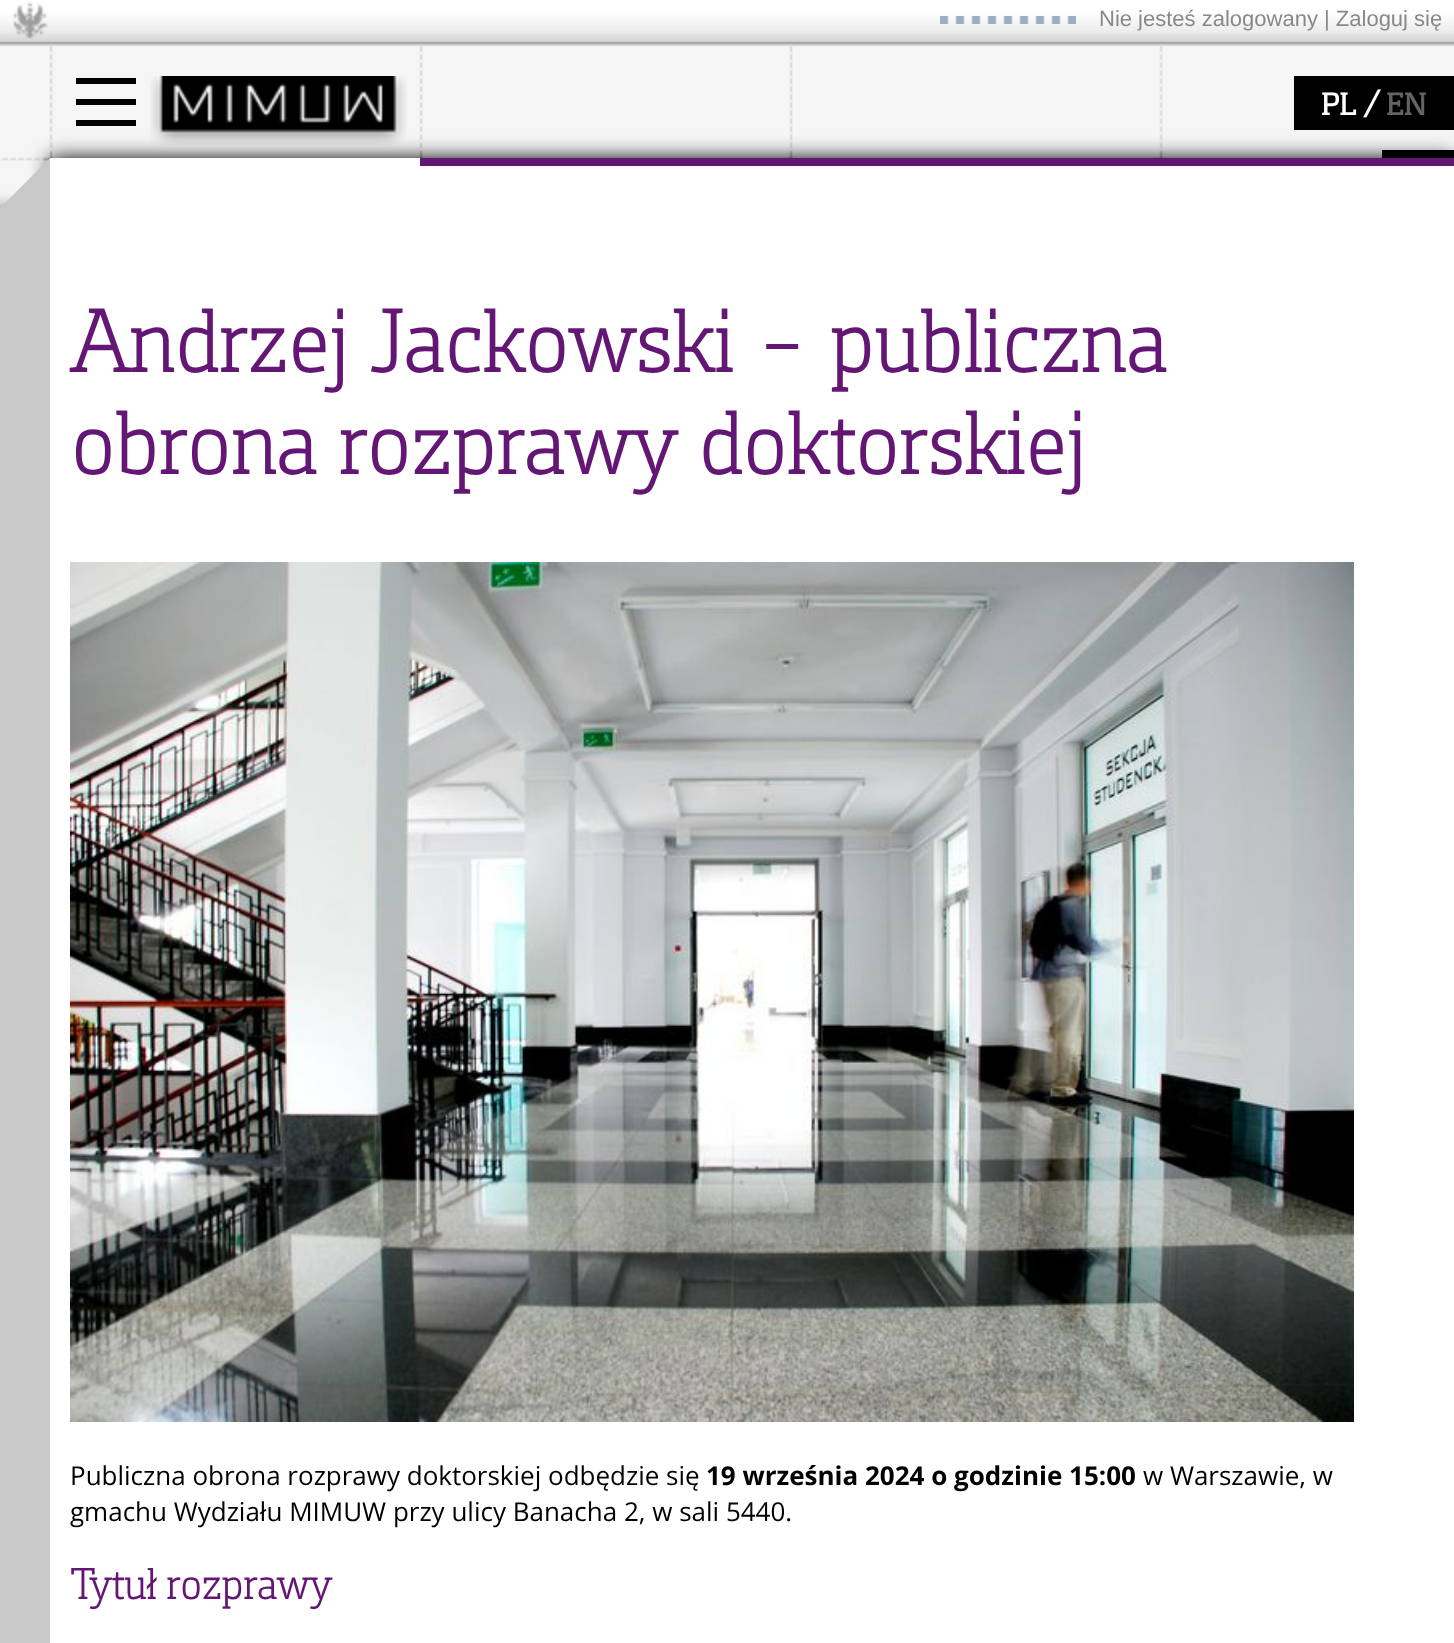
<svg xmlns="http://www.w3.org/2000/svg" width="1454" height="1643">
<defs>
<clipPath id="clip1"><rect x="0" y="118" width="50" height="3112"/></clipPath>
<clipPath id="clip2"><rect y="118" width="50" height="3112"/></clipPath>
</defs>
<rect width="100%" height="100%" fill="#fff"/>
<image x="0" y="46" width="1454" height="162" href="media/1.png"/>
<image x="0" y="0" width="1454" height="46" href="media/2.png"/>
<image x="940" y="16" width="136" height="8" href="media/3.png"/>
<text x="1099" y="26" style="font-family:Liberation Sans;font-size:22px;fill:#888">Nie jesteś zalogowany | Zaloguj się</text>
<rect x="76" y="78" width="60" height="6" fill="#000"/>
<rect x="76" y="99" width="60" height="6" fill="#000"/>
<rect x="76" y="120" width="60" height="6" fill="#000"/>
<rect x="1294" y="76" width="160" height="54" fill="#000"/>
<text x="1321" y="115" style="font-family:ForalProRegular;font-size:32px;font-weight:bold;fill:#fff">PL</text>
<text x="1364" y="114" style="font-family:ForalProRegular;font-size:32px;font-weight:bold;fill:#fff">/</text>
<text x="1386" y="115" style="font-family:ForalProRegular;font-size:32px;font-weight:bold;fill:#646464">EN</text>
<rect x="1382" y="150" width="72" height="8" fill="#000"/>
<image x="150" y="76" width="257" height="70" href="media/4.png"/>
<rect x="50" y="158" width="1404" height="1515" fill="#000" filter="blur(10px)"/>
<rect x="50" y="158" width="1404" height="1485" fill="#fff"/>
<g clip-path="url(#clip1)">
<rect x="-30" y="214" width="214" height="268" fill="#000" filter="blur(10px)"/>
</g>
<g clip-path="url(#clip2)">
<path d="M-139 347l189-189l189 189l-189 190z" fill="#c8c8c8"/>
</g>
<rect y="487" width="50" height="1156" fill="#c8c8c8"/>
<rect x="420" y="158" width="1034" height="8" fill="#641674"/>
<text x="70" y="372" style="font-family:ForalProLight;font-size:90px;font-weight:bold;fill:#641674">Andrzej Jackowski – publiczna</text>
<text x="70" y="474" style="font-family:ForalProLight;font-size:90px;font-weight:bold;fill:#641674">obrona rozprawy doktorskiej</text>
<image x="70" y="562" width="1284" height="860" href="media/5.png"/>
<text x="70" y="1485" style="font-family:Open Sans;font-size:26px;fill:#000">Publiczna obrona rozprawy doktorskiej odbędzie się</text>
<text x="706" y="1485" style="font-family:Open Sans;font-size:26px;font-weight:bold;fill:#000">19 września 2024 o godzinie 15:00</text>
<text x="1143" y="1485" style="font-family:Open Sans;font-size:26px;fill:#000">w Warszawie, w</text>
<text x="70" y="1521" style="font-family:Open Sans;font-size:26px;fill:#000">gmachu Wydziału MIMUW przy ulicy Banacha 2, w sali 5440.</text>
<text x="70" y="1599" style="font-family:ForalProLight;font-size:44px;font-weight:bold;fill:#641674">Tytuł rozprawy</text>
</svg>
